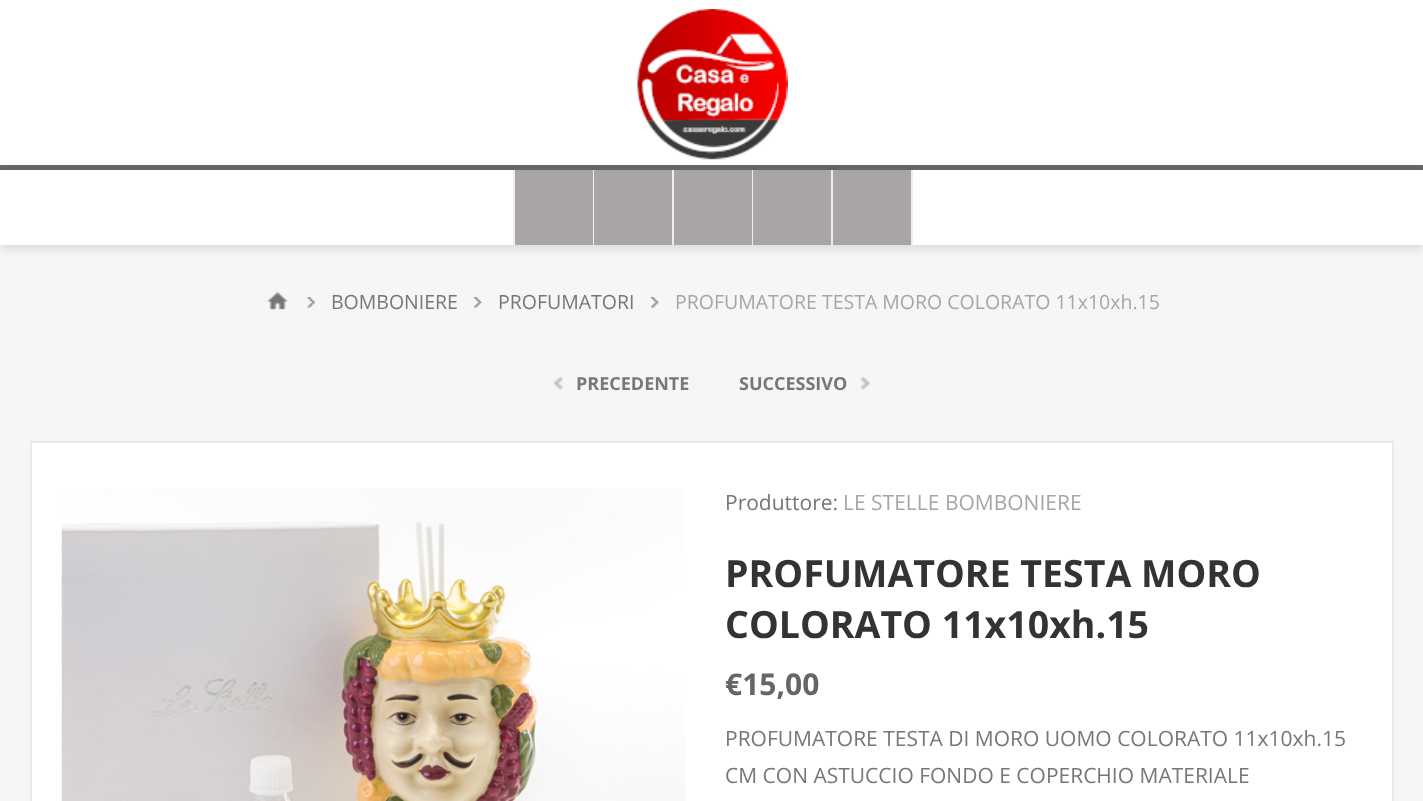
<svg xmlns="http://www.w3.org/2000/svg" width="1423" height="801">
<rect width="100%" height="100%" fill="#fff"/>
<rect y="245" width="1423" height="556" fill="#f6f6f6"/>
<image x="637" y="9" width="151" height="151" href="media/1.png"/>
<rect y="170" width="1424" height="79" fill="#0000001a" filter="blur(4px)"/>
<rect y="170" width="1423" height="75" fill="#fff"/>
<rect y="165" width="1423" height="5" fill="#666"/>
<rect x="515" y="170" width="78" height="75" fill="#a9a5a5"/>
<rect x="593" y="170" width="1" height="75" fill="#eee"/>
<rect x="513" y="170" width="2" height="75" fill="#eee"/>
<rect x="594" y="170" width="78" height="75" fill="#a9a5a5"/>
<rect x="672" y="170" width="2" height="75" fill="#eee"/>
<rect x="674" y="170" width="78" height="75" fill="#a9a5a5"/>
<rect x="752" y="170" width="1" height="75" fill="#eee"/>
<rect x="753" y="170" width="78" height="75" fill="#a9a5a5"/>
<rect x="831" y="170" width="2" height="75" fill="#eee"/>
<rect x="833" y="170" width="78" height="75" fill="#a9a5a5"/>
<rect x="911" y="170" width="2" height="75" fill="#eee"/>
<image x="267" y="292" width="21" height="18" href="media/2.png"/>
<image x="307" y="297" width="8" height="11" href="media/3.png"/>
<text x="331" y="309" style="font-family:Open Sans;font-size:19.5px;fill:#777">BOMBONIERE</text>
<image x="474" y="297" width="8" height="11" href="media/4.png"/>
<text x="498" y="309" style="font-family:Open Sans;font-size:19.5px;fill:#777">PROFUMATORI</text>
<image x="651" y="297" width="8" height="11" href="media/5.png"/>
<text x="675" y="309" style="font-family:Open Sans;font-size:19.5px;fill:#a9a5a5">PROFUMATORE TESTA MORO COLORATO 11x10xh.15</text>
<image x="553" y="376" width="10" height="14" href="media/6.png"/>
<text x="576" y="390" style="font-family:Open Sans;font-size:18px;font-weight:bold;fill:#777">PRECEDENTE</text>
<text x="739" y="390" style="font-family:Open Sans;font-size:18px;font-weight:bold;fill:#777">SUCCESSIVO</text>
<image x="860" y="376" width="11" height="14" href="media/7.png"/>
<rect x="31" y="442" width="1362" height="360" fill="#fff" stroke="#e9e9e9" stroke-width="2"/>
<image x="61" y="488" width="624" height="313" href="media/8.png"/>
<text x="725" y="510" style="font-family:Open Sans;font-size:21px;fill:#777">Produttore:</text>
<text x="843" y="510" style="font-family:Open Sans;font-size:21px;fill:#a9a5a5">LE STELLE BOMBONIERE</text>
<text x="725" y="587" style="font-family:Open Sans;font-size:37.5px;font-weight:bold;fill:#333">PROFUMATORE TESTA MORO</text>
<text x="725" y="638" style="font-family:Open Sans;font-size:37.5px;font-weight:bold;fill:#333">COLORATO 11x10xh.15</text>
<text x="725" y="695" style="font-family:Open Sans;font-size:30px;font-weight:bold;fill:#666">€15,00</text>
<text x="725" y="746" style="font-family:Open Sans;font-size:21px;fill:#777">PROFUMATORE TESTA DI MORO UOMO COLORATO 11x10xh.15</text>
<text x="725" y="783" style="font-family:Open Sans;font-size:21px;fill:#777">CM CON ASTUCCIO FONDO E COPERCHIO MATERIALE</text>
</svg>
